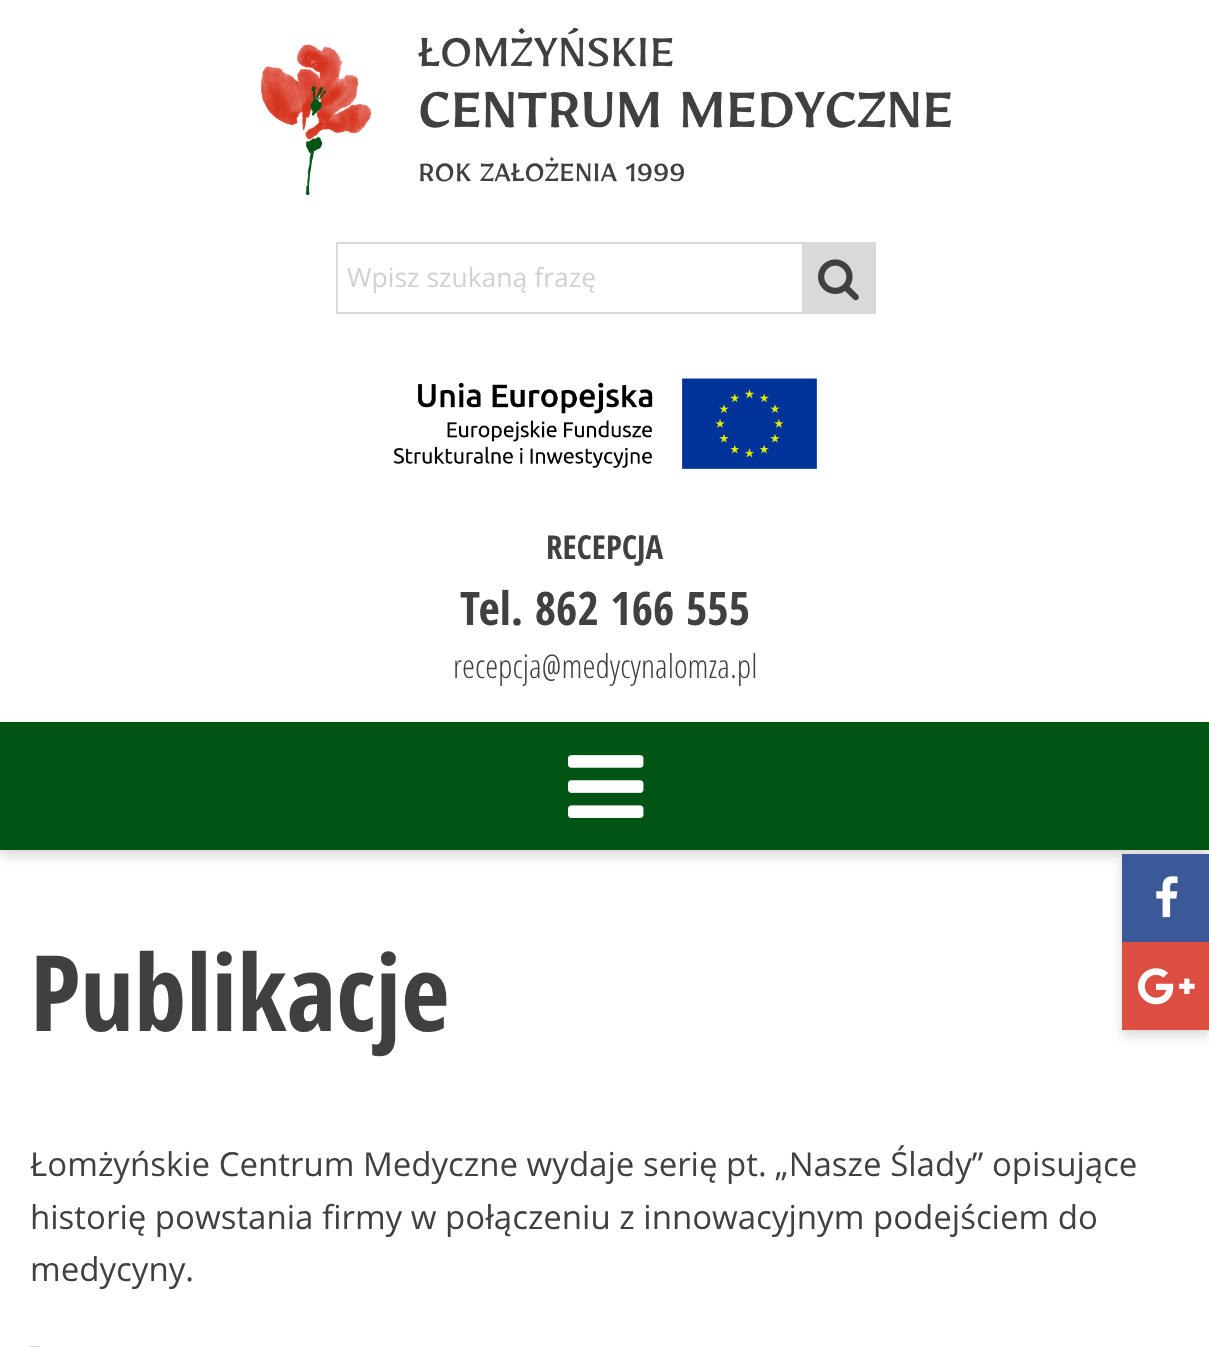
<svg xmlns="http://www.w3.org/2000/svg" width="1209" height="1347">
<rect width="100%" height="100%" fill="#fff"/>
<image x="260" y="44" width="112" height="151" href="media/1.png"/>
<text x="418" y="66" style="font-family:Mirza;font-size:53px;fill:#404040">ŁOMŻYŃSKIE</text>
<text x="418" y="127" style="font-family:Mirza;font-size:66px;font-weight:500;fill:#404040">CENTRUM MEDYCZNE</text>
<text x="418" y="181" style="font-family:Mirza;font-size:33px;fill:#404040">ROK ZAŁOŻENIA 1999</text>
<rect x="337" y="243" width="466" height="70" fill="none" stroke="#d9d9d9" stroke-width="2"/>
<text x="347" y="287" style="font-family:Open Sans;font-size:26.5px;fill:#d1d1d1">Wpisz szukaną frazę</text>
<rect x="804" y="242" width="72" height="72" fill="#d9d9d9"/>
<image x="818" y="259" width="41" height="42" href="media/2.png"/>
<image x="393" y="378" width="424" height="91" href="media/3.png"/>
<text x="546" y="559" style="font-family:Open Sans Condensed;font-size:33px;font-weight:bold;fill:#404040">RECEPCJA</text>
<text x="460" y="625" style="font-family:Open Sans Condensed;font-size:46.25px;font-weight:bold;fill:#404040">Tel. 862 166 555</text>
<text x="453" y="678" style="font-family:Open Sans Condensed;font-size:33px;font-weight:300;fill:#404040">recepcja@medycynalomza.pl</text>
<rect y="728" width="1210" height="128" fill="#00000026" filter="blur(6px)"/>
<rect y="722" width="1209" height="128" fill="#005414"/>
<image x="568" y="755" width="76" height="63" href="media/4.png"/>
<rect x="1122" y="860" width="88" height="88" fill="#00000026" filter="blur(6px)"/>
<rect x="1122" y="854" width="87" height="88" fill="#3b5998"/>
<image x="1156" y="876" width="22" height="42" href="media/5.png"/>
<rect x="1122" y="948" width="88" height="88" fill="#00000026" filter="blur(6px)"/>
<rect x="1122" y="942" width="87" height="88" fill="#dc4e41"/>
<image x="1138" y="968" width="57" height="37" href="media/6.png"/>
<text x="30" y="1031" style="font-family:Open Sans Condensed;font-size:105.5px;font-weight:bold;fill:#404040">Publikacje</text>
<text x="30" y="1176" style="font-family:Open Sans;font-size:33px;fill:#404040">Łomżyńskie Centrum Medyczne wydaje serię pt. „Nasze Ślady” opisujące</text>
<text x="30" y="1229" style="font-family:Open Sans;font-size:33px;fill:#404040">historię powstania firmy w połączeniu z innowacyjnym podejściem do</text>
<text x="30" y="1281" style="font-family:Open Sans;font-size:33px;fill:#404040">medycyny.</text>
<rect x="30" y="1346" width="10" height="1" fill="#d9d9d9"/>
</svg>
